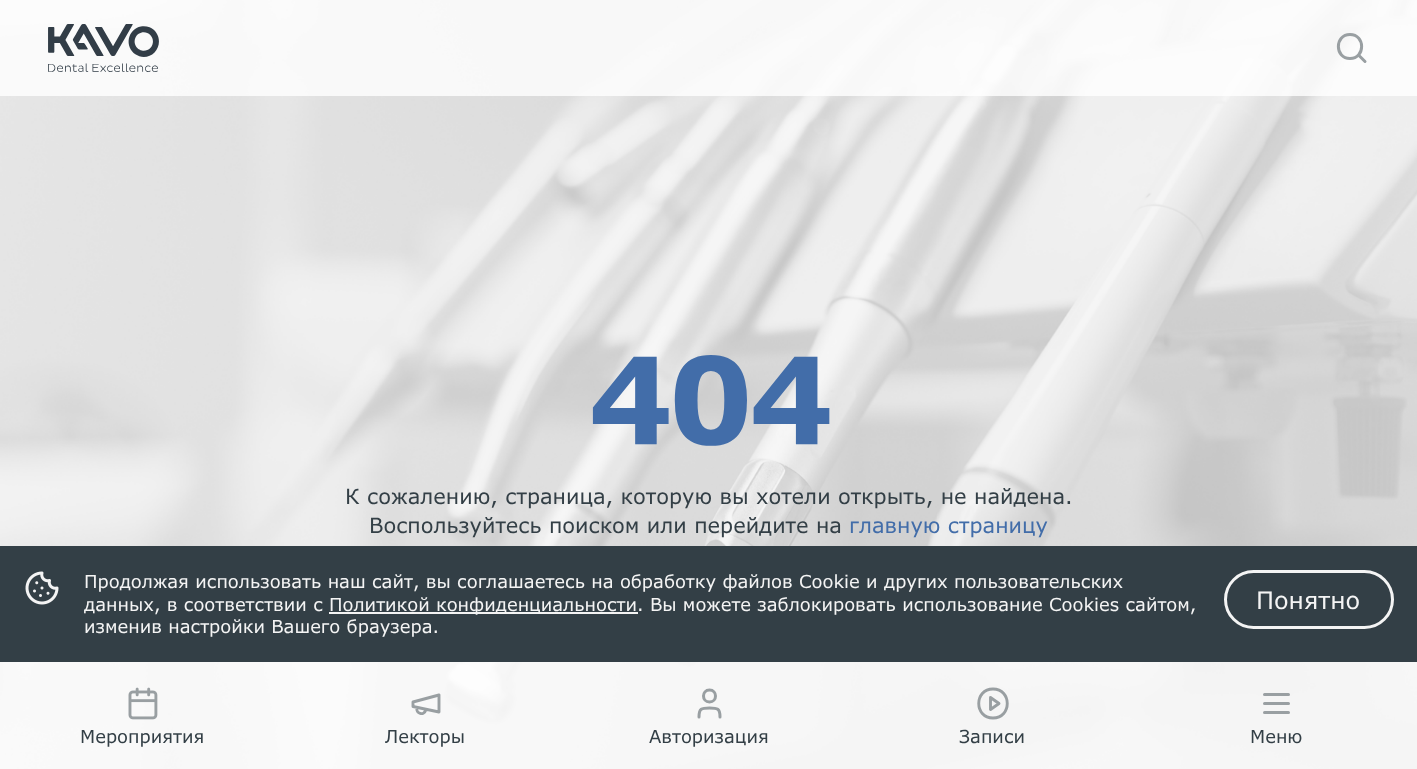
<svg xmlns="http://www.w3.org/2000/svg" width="1417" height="769">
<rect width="100%" height="100%" fill="#f4f4f4"/>
<image x="0" y="0" width="1417" height="769" href="media/2.png"/>
<rect width="1417" height="96" fill="#ffffffcc"/>
<image x="48" y="24" width="111" height="48" href="media/1.png"/>
<path d="M1350 58.5c15.5 0 15.5-24 0-24c-15.5 0-15.5 24 0 24zm15 3l-6.5-6.5" fill="none" stroke="#999fa2" stroke-width="3" stroke-linecap="round" stroke-linejoin="round"/>
<text x="588" y="444" style="font-family:Verdana;font-size:120px;font-weight:bold;letter-spacing:-5px;fill:#426da9">404</text>
<text x="345" y="504" style="font-family:Verdana;font-size:21px;fill:#333f46">К сожалению, страница, которую вы хотели открыть, не найдена.</text>
<text x="369" y="533" style="font-family:Verdana;font-size:21px;fill:#333f46">Воспользуйтесь поиском или перейдите на</text>
<text x="849" y="533" style="font-family:Verdana;font-size:21px;fill:#426da9">главную страницу</text>
<rect y="546" width="1417" height="116" fill="#333f46"/>
<image x="25" y="571" width="34" height="34" href="media/3.png"/>
<text x="84" y="588" style="font-family:Verdana;font-size:18px;fill:#f4f4f4">Продолжая использовать наш сайт, вы соглашаетесь на обработку файлов Сookie и других пользовательских</text>
<text x="84" y="611" style="font-family:Verdana;font-size:18px;fill:#f4f4f4">данных, в соответствии с</text>
<rect x="329" y="612" width="309" height="2" fill="#f4f4f4"/>
<text x="329" y="611" style="font-family:Verdana;font-size:18px;fill:#f4f4f4">Политикой конфиденциальности</text>
<text x="637" y="611" style="font-family:Verdana;font-size:18px;fill:#f4f4f4">. Вы можете заблокировать использование Cookies сайтом,</text>
<text x="84" y="633" style="font-family:Verdana;font-size:18px;fill:#f4f4f4">изменив настройки Вашего браузера.</text>
<rect x="1225.5" y="571.5" width="167" height="56" rx="28" fill="none" stroke="#f4f4f4" stroke-width="3"/>
<text x="1256" y="609" style="font-family:Verdana;font-size:24px;fill:#f4f4f4">Понятно</text>
<rect y="662" width="1417" height="107" fill="#ffffffcc"/>
<image x="128" y="687" width="30" height="33" href="media/4.png"/>
<text x="80" y="743" style="font-family:Verdana;font-size:18px;fill:#333f46">Мероприятия</text>
<path d="M413 702l26-7v17l-26-5.5zm12.5 8.5c-1.5 5.5-10 3-8.5-2.5" fill="none" stroke="#999fa2" stroke-width="2.9" stroke-linecap="round" stroke-linejoin="round"/>
<text x="385" y="743" style="font-family:Verdana;font-size:18px;fill:#333f46">Лекторы</text>
<path d="M720 717c0-8.5-2.5-9-10.5-9c-8 0-10.5 .5-10.5 9m10.5-15c8 0 8-12 0-12c-8 0-8 12 0 12z" fill="none" stroke="#999fa2" stroke-width="3" stroke-linecap="round" stroke-linejoin="round"/>
<text x="649" y="743" style="font-family:Verdana;font-size:18px;fill:#333f46">Авторизация</text>
<path d="M993 718c19 0 19-29 0-29c-19 0-19 29 0 29zm-2.5-20.5l8.5 6l-8.5 6z" fill="none" stroke="#999fa2" stroke-width="2.9" stroke-linecap="round" stroke-linejoin="round"/>
<text x="959" y="743" style="font-family:Verdana;font-size:18px;fill:#333f46">Записи</text>
<rect x="1263" y="693" width="27" height="3" rx="1.5" fill="#999fa2"/>
<rect x="1263" y="702" width="27" height="3" rx="1.5" fill="#999fa2"/>
<rect x="1263" y="711" width="27" height="3" rx="1.5" fill="#999fa2"/>
<text x="1250" y="743" style="font-family:Verdana;font-size:18px;fill:#333f46">Меню</text>
</svg>
